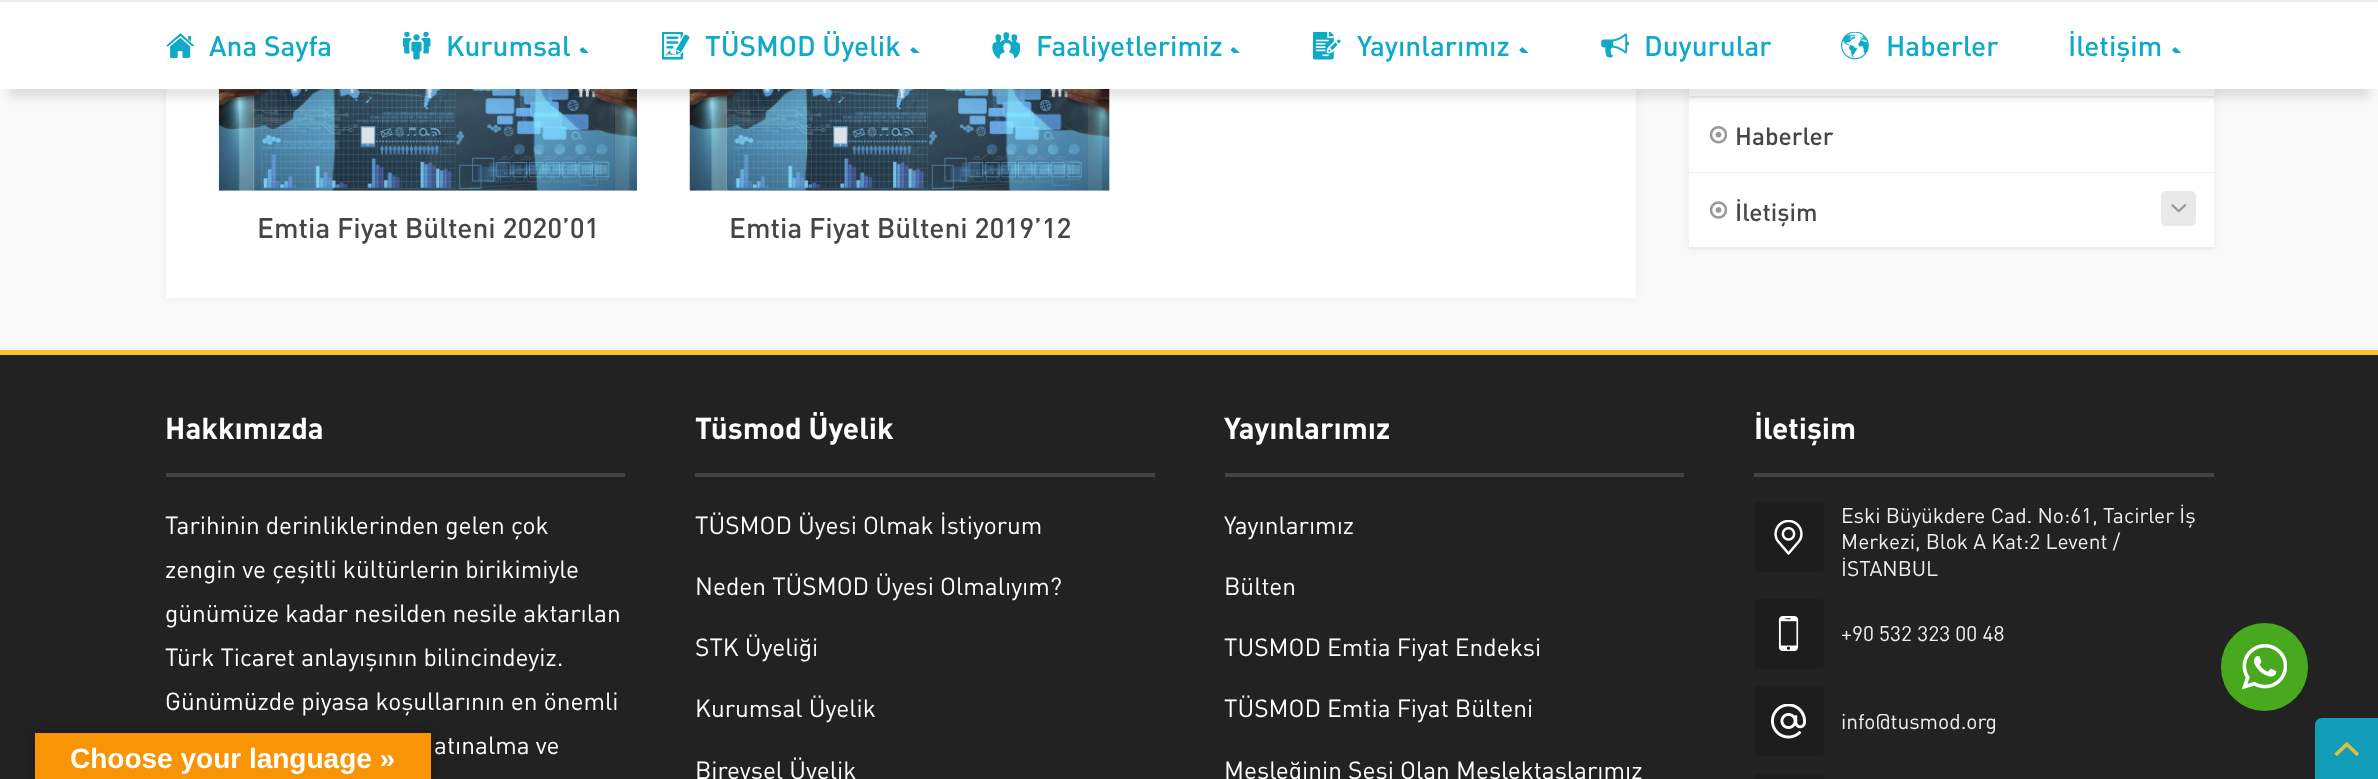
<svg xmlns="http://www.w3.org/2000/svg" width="2378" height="779">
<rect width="100%" height="100%" fill="#f9f9f9"/>
<rect x="1689" y="-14" width="525" height="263" fill="#0000000d" filter="blur(4.5px)"/>
<rect x="1689" y="89" width="525" height="158" fill="#fff"/>
<rect x="1689" y="96" width="525" height="2" fill="#ededed"/>
<rect x="166" y="-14" width="1470" height="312" fill="#0000000d" filter="blur(4.5px)"/>
<rect x="166" y="89" width="1470" height="209" fill="#fff"/>
<rect x="219" y="190" width="418" height="1" fill="#f0f0f0"/>
<image x="218" y="89" width="419" height="102" href="media/14.png"/>
<rect x="690" y="89" width="420" height="102" fill="#f0f0f0"/>
<image x="689" y="89" width="421" height="102" href="media/15.png"/>
<rect x="9" y="26" width="2361" height="72" fill="#0000001a" filter="blur(4.5px)"/>
<rect y="2" width="2378" height="87" fill="#fff"/>
<rect width="2378" height="2" fill="#ececec"/>
<image x="166" y="33" width="28" height="25" href="media/1.png"/>
<text x="209" y="56" style="font-family:DIN;font-size:28px;font-weight:500;fill:#0faac7">Ana Sayfa</text>
<image x="403" y="32" width="28" height="28" href="media/2.png"/>
<text x="446" y="56" style="font-family:DIN;font-size:28px;font-weight:500;fill:#0faac7">Kurumsal</text>
<image x="579" y="47" width="10" height="6" href="media/3.png"/>
<image x="662" y="32" width="28" height="28" href="media/4.png"/>
<text x="705" y="56" style="font-family:DIN;font-size:28px;font-weight:500;fill:#0faac7">TÜSMOD Üyelik</text>
<image x="910" y="47" width="10" height="6" href="media/5.png"/>
<image x="992" y="32" width="28" height="27" href="media/6.png"/>
<text x="1036" y="56" style="font-family:DIN;font-size:28px;font-weight:500;fill:#0faac7">Faaliyetlerimiz</text>
<image x="1230" y="47" width="10" height="6" href="media/3.png"/>
<image x="1313" y="32" width="28" height="28" href="media/7.png"/>
<text x="1357" y="56" style="font-family:DIN;font-size:28px;font-weight:500;fill:#0faac7">Yayınlarımız</text>
<image x="1519" y="47" width="10" height="6" href="media/5.png"/>
<image x="1601" y="33" width="28" height="25" href="media/8.png"/>
<text x="1644" y="56" style="font-family:DIN;font-size:28px;font-weight:500;fill:#0faac7">Duyurular</text>
<image x="1841" y="32" width="28" height="28" href="media/9.png"/>
<text x="1886" y="56" style="font-family:DIN;font-size:28px;font-weight:500;fill:#0faac7">Haberler</text>
<text x="2068" y="56" style="font-family:DIN;font-size:28px;font-weight:500;fill:#0faac7">İletişim</text>
<image x="2172" y="47" width="10" height="6" href="media/10.png"/>
<rect x="1689" y="172" width="525" height="1" fill="#ededed"/>
<image x="1710" y="126" width="17" height="18" href="media/11.png"/>
<text x="1735" y="145" style="font-family:DIN;font-size:24.5px;font-weight:500;fill:#464646">Haberler</text>
<rect x="1689" y="247" width="525" height="2" fill="#ededed"/>
<image x="1710" y="201" width="17" height="18" href="media/12.png"/>
<text x="1735" y="221" style="font-family:DIN;font-size:24.5px;font-weight:500;fill:#464646">İletişim</text>
<rect x="2161" y="191" width="35" height="35" rx="5" fill="#e9e9e9"/>
<image x="2171" y="204" width="16" height="9" href="media/13.png"/>
<text x="257" y="238" style="font-family:DIN;font-size:28px;font-weight:500;fill:#464646">Emtia Fiyat Bülteni 2020’01</text>
<text x="729" y="238" style="font-family:DIN;font-size:28px;font-weight:500;fill:#464646">Emtia Fiyat Bülteni 2019’12</text>
<rect y="355" width="2378" height="424" fill="#222"/>
<rect y="350" width="2378" height="5" fill="#fac32d"/>
<rect x="166" y="473" width="459" height="4" fill="#434343"/>
<text x="165" y="439" style="font-family:DIN;font-size:29.75px;font-weight:bold;fill:#fff">Hakkımızda</text>
<text x="165" y="534" style="font-family:DIN;font-size:24.5px;fill:#fff">Tarihinin derinliklerinden gelen çok</text>
<text x="165" y="578" style="font-family:DIN;font-size:24.5px;fill:#fff">zengin ve çeşitli kültürlerin birikimiyle</text>
<text x="165" y="622" style="font-family:DIN;font-size:24.5px;fill:#fff">günümüze kadar nesilden nesile aktarılan</text>
<text x="165" y="666" style="font-family:DIN;font-size:24.5px;fill:#fff">Türk Ticaret anlayışının bilincindeyiz.</text>
<text x="165" y="710" style="font-family:DIN;font-size:24.5px;fill:#fff">Günümüzde piyasa koşullarının en önemli</text>
<text x="434" y="754" style="font-family:DIN;font-size:24.5px;fill:#fff">atınalma ve</text>
<rect x="695" y="473" width="460" height="4" fill="#434343"/>
<text x="695" y="439" style="font-family:DIN;font-size:29.75px;font-weight:bold;fill:#fff">Tüsmod Üyelik</text>
<text x="695" y="534" style="font-family:DIN;font-size:24.5px;fill:#fff">TÜSMOD Üyesi Olmak İstiyorum</text>
<text x="695" y="595" style="font-family:DIN;font-size:24.5px;fill:#fff">Neden TÜSMOD Üyesi Olmalıyım?</text>
<text x="695" y="656" style="font-family:DIN;font-size:24.5px;fill:#fff">STK Üyeliği</text>
<text x="695" y="717" style="font-family:DIN;font-size:24.5px;fill:#fff">Kurumsal Üyelik</text>
<text x="695" y="779" style="font-family:DIN;font-size:24.5px;fill:#fff">Bireysel Üyelik</text>
<rect x="1225" y="473" width="459" height="4" fill="#434343"/>
<text x="1224" y="439" style="font-family:DIN;font-size:29.75px;font-weight:bold;fill:#fff">Yayınlarımız</text>
<text x="1224" y="534" style="font-family:DIN;font-size:24.5px;fill:#fff">Yayınlarımız</text>
<text x="1224" y="595" style="font-family:DIN;font-size:24.5px;fill:#fff">Bülten</text>
<text x="1224" y="656" style="font-family:DIN;font-size:24.5px;fill:#fff">TUSMOD Emtia Fiyat Endeksi</text>
<text x="1224" y="717" style="font-family:DIN;font-size:24.5px;fill:#fff">TÜSMOD Emtia Fiyat Bülteni</text>
<text x="1224" y="779" style="font-family:DIN;font-size:24.5px;fill:#fff">Mesleğinin Sesi Olan Meslektaşlarımız</text>
<rect x="1754" y="473" width="460" height="4" fill="#434343"/>
<text x="1754" y="439" style="font-family:DIN;font-size:29.75px;font-weight:bold;fill:#fff">İletişim</text>
<rect x="1754" y="502" width="70" height="70" rx="5" fill="#1d1d1d"/>
<image x="1774" y="520" width="29" height="35" href="media/16.png"/>
<text x="1841" y="523" style="font-family:DIN;font-size:21px;fill:#eee">Eski Büyükdere Cad. No:61, Tacirler İş</text>
<text x="1841" y="549" style="font-family:DIN;font-size:21px;fill:#eee">Merkezi, Blok A Kat:2 Levent /</text>
<text x="1841" y="576" style="font-family:DIN;font-size:21px;fill:#eee">İSTANBUL</text>
<rect x="1754" y="599" width="70" height="70" rx="5" fill="#1d1d1d"/>
<image x="1778" y="616" width="21" height="35" href="media/17.png"/>
<text x="1841" y="641" style="font-family:DIN;font-size:21px;fill:#eee">+90 532 323 00 48</text>
<rect x="1754" y="686" width="70" height="70" rx="5" fill="#1d1d1d"/>
<image x="1771" y="704" width="35" height="35" href="media/18.png"/>
<text x="1841" y="729" style="font-family:DIN;font-size:21px;fill:#eee">info@tusmod.org</text>
<rect x="1754" y="774" width="70" height="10" rx="5" fill="#1d1d1d"/>
<rect x="2221" y="623" width="87" height="88" rx="43.5" fill="#48a91f"/>
<image x="2242" y="644" width="45" height="46" href="media/19.png"/>
<rect x="35" y="733" width="396" height="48" fill="#0000004d" filter="blur(8px)"/>
<rect x="35" y="733" width="396" height="46" fill="#f89406"/>
<text x="70" y="768" style="font-family:Liberation Sans;font-size:28px;font-weight:bold;fill:#fff">Choose your language »</text>
<path d="M2322 718h56v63h-63v-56c0-4 3-7 7-7z" fill="#119cb7"/>
<image x="2334" y="742" width="25" height="14" href="media/20.png"/>
</svg>
